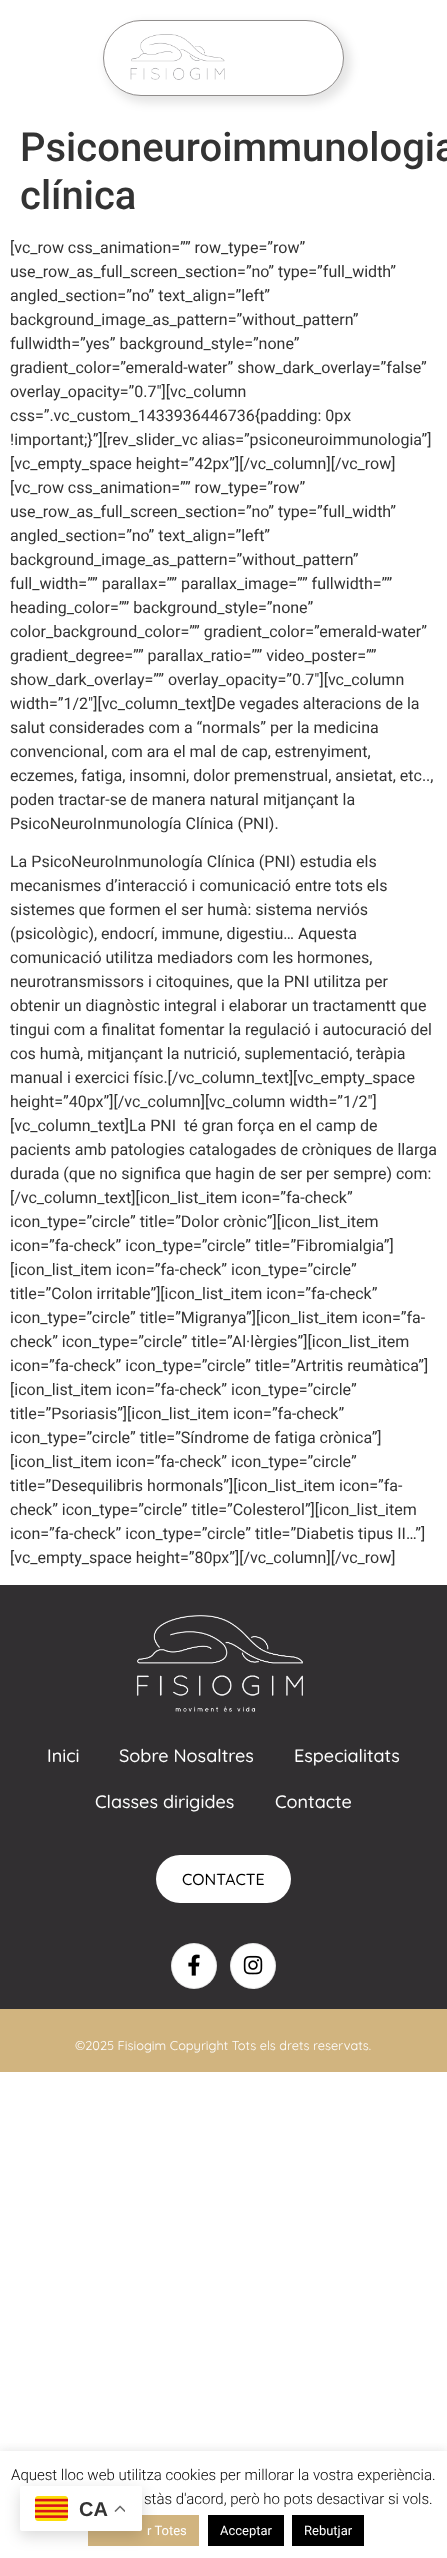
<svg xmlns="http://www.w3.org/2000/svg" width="447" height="2558">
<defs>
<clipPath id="clip1"><rect x="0" y="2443" width="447" height="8"/></clipPath>
</defs>
<rect width="100%" height="100%" fill="#fff"/>
<rect x="106" y="23" width="245" height="80" rx="40" fill="#0000001a" filter="blur(5px)"/>
<rect x="103.5" y="20.5" width="240" height="75" rx="37.5" fill="#fff" stroke="#908d8c"/>
<image x="130" y="34" width="95" height="46" href="media/1.png"/>
<text x="20" y="161" style="font-family:Roboto;font-size:40px;font-weight:500;fill:#333">Psiconeuroimmunologia</text>
<text x="20" y="209" style="font-family:Roboto;font-size:40px;font-weight:500;fill:#333">clínica</text>
<text x="10" y="253" style="font-family:Roboto;font-size:16px;fill:#333">[vc_row css_animation=”” row_type=”row”</text>
<text x="10" y="277" style="font-family:Roboto;font-size:16px;fill:#333">use_row_as_full_screen_section=”no” type=”full_width”</text>
<text x="10" y="301" style="font-family:Roboto;font-size:16px;fill:#333">angled_section=”no” text_align=”left”</text>
<text x="10" y="325" style="font-family:Roboto;font-size:16px;fill:#333">background_image_as_pattern=”without_pattern”</text>
<text x="10" y="349" style="font-family:Roboto;font-size:16px;fill:#333">fullwidth=”yes” background_style=”none”</text>
<text x="10" y="373" style="font-family:Roboto;font-size:16px;fill:#333">gradient_color=”emerald-water” show_dark_overlay=”false”</text>
<text x="10" y="397" style="font-family:Roboto;font-size:16px;fill:#333">overlay_opacity=”0.7″][vc_column</text>
<text x="10" y="421" style="font-family:Roboto;font-size:16px;fill:#333">css=”.vc_custom_1433936446736{padding: 0px</text>
<text x="10" y="445" style="font-family:Roboto;font-size:16px;fill:#333">!important;}”][rev_slider_vc alias=”psiconeuroimmunologia”]</text>
<text x="10" y="469" style="font-family:Roboto;font-size:16px;fill:#333">[vc_empty_space height=”42px”][/vc_column][/vc_row]</text>
<text x="10" y="493" style="font-family:Roboto;font-size:16px;fill:#333">[vc_row css_animation=”” row_type=”row”</text>
<text x="10" y="517" style="font-family:Roboto;font-size:16px;fill:#333">use_row_as_full_screen_section=”no” type=”full_width”</text>
<text x="10" y="541" style="font-family:Roboto;font-size:16px;fill:#333">angled_section=”no” text_align=”left”</text>
<text x="10" y="565" style="font-family:Roboto;font-size:16px;fill:#333">background_image_as_pattern=”without_pattern”</text>
<text x="10" y="589" style="font-family:Roboto;font-size:16px;fill:#333">full_width=”” parallax=”” parallax_image=”” fullwidth=””</text>
<text x="10" y="613" style="font-family:Roboto;font-size:16px;fill:#333">heading_color=”” background_style=”none”</text>
<text x="10" y="637" style="font-family:Roboto;font-size:16px;fill:#333">color_background_color=”” gradient_color=”emerald-water”</text>
<text x="10" y="661" style="font-family:Roboto;font-size:16px;fill:#333">gradient_degree=”” parallax_ratio=”” video_poster=””</text>
<text x="10" y="685" style="font-family:Roboto;font-size:16px;fill:#333">show_dark_overlay=”” overlay_opacity=”0.7″][vc_column</text>
<text x="10" y="709" style="font-family:Roboto;font-size:16px;fill:#333">width=”1/2″][vc_column_text]De vegades alteracions de la</text>
<text x="10" y="733" style="font-family:Roboto;font-size:16px;fill:#333">salut considerades com a “normals” per la medicina</text>
<text x="10" y="757" style="font-family:Roboto;font-size:16px;fill:#333">convencional, com ara el mal de cap, estrenyiment,</text>
<text x="10" y="781" style="font-family:Roboto;font-size:16px;fill:#333">eczemes, fatiga, insomni, dolor premenstrual, ansietat, etc..,</text>
<text x="10" y="805" style="font-family:Roboto;font-size:16px;fill:#333">poden tractar-se de manera natural mitjançant la</text>
<text x="10" y="829" style="font-family:Roboto;font-size:16px;fill:#333">PsicoNeuroInmunología Clínica (PNI).</text>
<text x="10" y="867" style="font-family:Roboto;font-size:16px;fill:#333">La PsicoNeuroInmunología Clínica (PNI) estudia els</text>
<text x="10" y="891" style="font-family:Roboto;font-size:16px;fill:#333">mecanismes d’interacció i comunicació entre tots els</text>
<text x="10" y="915" style="font-family:Roboto;font-size:16px;fill:#333">sistemes que formen el ser humà: sistema nerviós</text>
<text x="10" y="939" style="font-family:Roboto;font-size:16px;fill:#333">(psicològic), endocrí, immune, digestiu… Aquesta</text>
<text x="10" y="963" style="font-family:Roboto;font-size:16px;fill:#333">comunicació utilitza mediadors com les hormones,</text>
<text x="10" y="987" style="font-family:Roboto;font-size:16px;fill:#333">neurotransmissors i citoquines, que la PNI utilitza per</text>
<text x="10" y="1011" style="font-family:Roboto;font-size:16px;fill:#333">obtenir un diagnòstic integral i elaborar un tractamentt que</text>
<text x="10" y="1035" style="font-family:Roboto;font-size:16px;fill:#333">tingui com a finalitat fomentar la regulació i autocuració del</text>
<text x="10" y="1059" style="font-family:Roboto;font-size:16px;fill:#333">cos humà, mitjançant la nutrició, suplementació, teràpia</text>
<text x="10" y="1083" style="font-family:Roboto;font-size:16px;fill:#333">manual i exercici físic.[/vc_column_text][vc_empty_space</text>
<text x="10" y="1107" style="font-family:Roboto;font-size:16px;fill:#333">height=”40px”][/vc_column][vc_column width=”1/2″]</text>
<text x="10" y="1131" style="font-family:Roboto;font-size:16px;fill:#333" xml:space="preserve">[vc_column_text]La PNI  té gran força en el camp de</text>
<text x="10" y="1155" style="font-family:Roboto;font-size:16px;fill:#333">pacients amb patologies catalogades de cròniques de llarga</text>
<text x="10" y="1179" style="font-family:Roboto;font-size:16px;fill:#333">durada (que no significa que hagin de ser per sempre) com:</text>
<text x="10" y="1203" style="font-family:Roboto;font-size:16px;fill:#333">[/vc_column_text][icon_list_item icon=”fa-check”</text>
<text x="10" y="1227" style="font-family:Roboto;font-size:16px;fill:#333">icon_type=”circle” title=”Dolor crònic”][icon_list_item</text>
<text x="10" y="1251" style="font-family:Roboto;font-size:16px;fill:#333">icon=”fa-check” icon_type=”circle” title=”Fibromialgia”]</text>
<text x="10" y="1275" style="font-family:Roboto;font-size:16px;fill:#333">[icon_list_item icon=”fa-check” icon_type=”circle”</text>
<text x="10" y="1299" style="font-family:Roboto;font-size:16px;fill:#333">title=”Colon irritable”][icon_list_item icon=”fa-check”</text>
<text x="10" y="1323" style="font-family:Roboto;font-size:16px;fill:#333">icon_type=”circle” title=”Migranya”][icon_list_item icon=”fa-</text>
<text x="10" y="1347" style="font-family:Roboto;font-size:16px;fill:#333">check” icon_type=”circle” title=”Al·lèrgies”][icon_list_item</text>
<text x="10" y="1371" style="font-family:Roboto;font-size:16px;fill:#333">icon=”fa-check” icon_type=”circle” title=”Artritis reumàtica”]</text>
<text x="10" y="1395" style="font-family:Roboto;font-size:16px;fill:#333">[icon_list_item icon=”fa-check” icon_type=”circle”</text>
<text x="10" y="1419" style="font-family:Roboto;font-size:16px;fill:#333">title=”Psoriasis”][icon_list_item icon=”fa-check”</text>
<text x="10" y="1443" style="font-family:Roboto;font-size:16px;fill:#333">icon_type=”circle” title=”Síndrome de fatiga crònica”]</text>
<text x="10" y="1467" style="font-family:Roboto;font-size:16px;fill:#333">[icon_list_item icon=”fa-check” icon_type=”circle”</text>
<text x="10" y="1491" style="font-family:Roboto;font-size:16px;fill:#333">title=”Desequilibris hormonals”][icon_list_item icon=”fa-</text>
<text x="10" y="1515" style="font-family:Roboto;font-size:16px;fill:#333">check” icon_type=”circle” title=”Colesterol”][icon_list_item</text>
<text x="10" y="1539" style="font-family:Roboto;font-size:16px;fill:#333">icon=”fa-check” icon_type=”circle” title=”Diabetis tipus II…”]</text>
<text x="10" y="1563" style="font-family:Roboto;font-size:16px;fill:#333">[vc_empty_space height=”80px”][/vc_column][/vc_row]</text>
<rect y="1585" width="447" height="424" fill="#312f31"/>
<image x="136" y="1615" width="167" height="97" href="media/2.png"/>
<text x="47" y="1762" style="font-family:Quicksand;font-size:18px;font-weight:500;fill:#fff">Inici</text>
<text x="119" y="1762" style="font-family:Quicksand;font-size:18px;font-weight:500;fill:#fff">Sobre Nosaltres</text>
<text x="294" y="1762" style="font-family:Quicksand;font-size:18px;font-weight:500;fill:#fff">Especialitats</text>
<text x="95" y="1808" style="font-family:Quicksand;font-size:18px;font-weight:500;fill:#fff">Classes dirigides</text>
<text x="275" y="1808" style="font-family:Quicksand;font-size:18px;font-weight:500;fill:#fff">Contacte</text>
<rect x="156" y="1855" width="135" height="48" rx="24" fill="#fff"/>
<text x="182" y="1885" style="font-family:Quicksand;font-size:16px;font-weight:500;fill:#000">CONTACTE</text>
<circle cx="194" cy="1966" r="23" fill="#fff"/>
<circle cx="194" cy="1966" r="22.5" fill="none" stroke="#0000001a"/>
<image x="188" y="1954" width="12" height="22" href="media/3.png"/>
<circle cx="253" cy="1966" r="23" fill="#fff"/>
<circle cx="253" cy="1966" r="22.5" fill="none" stroke="#0000001a"/>
<image x="243" y="1955" width="20" height="20" href="media/4.png"/>
<rect y="2009" width="447" height="63" fill="#d1b47f"/>
<text x="75" y="2050" style="font-family:Quicksand;font-size:12.8px;fill:#fff">©2025 Fisiogim Copyright Tots els drets reservats.</text>
<g clip-path="url(#clip1)">
<rect y="2450" width="447" height="107" fill="#acabab4d" filter="blur(5px)"/>
</g>
<text x="11" y="2480" style="font-family:Roboto;font-size:15px;font-weight:300;fill:#000">Aquest lloc web utilitza cookies per millorar la vostra experiència.</text>
<text x="144" y="2504" style="font-family:Roboto;font-size:15px;font-weight:300;fill:#000">stàs d'acord, però ho pots desactivar si vols.</text>
<rect x="88" y="2515" width="111" height="31" fill="#d1b47f"/>
<text x="147" y="2535" style="font-family:Roboto;font-size:13px;fill:#fff">r Totes</text>
<rect x="208" y="2515" width="76" height="31" fill="#000"/>
<text x="220" y="2535" style="font-family:Roboto;font-size:13px;fill:#fff">Acceptar</text>
<rect x="292" y="2515" width="72" height="31" fill="#000"/>
<text x="304" y="2535" style="font-family:Roboto;font-size:13px;fill:#fff">Rebutjar</text>
<rect x="20" y="2491" width="122" height="45" rx="2" fill="#00000026" filter="blur(7.5px)"/>
<rect x="20" y="2486" width="122" height="45" rx="2" fill="#fff"/>
<image x="35" y="2496" width="33" height="25" href="media/5.png"/>
<text x="79" y="2516" style="font-family:Liberation Sans;font-size:20px;font-weight:bold;fill:#333">CA</text>
<image x="114" y="2505" width="11" height="7" href="media/6.png"/>
</svg>
